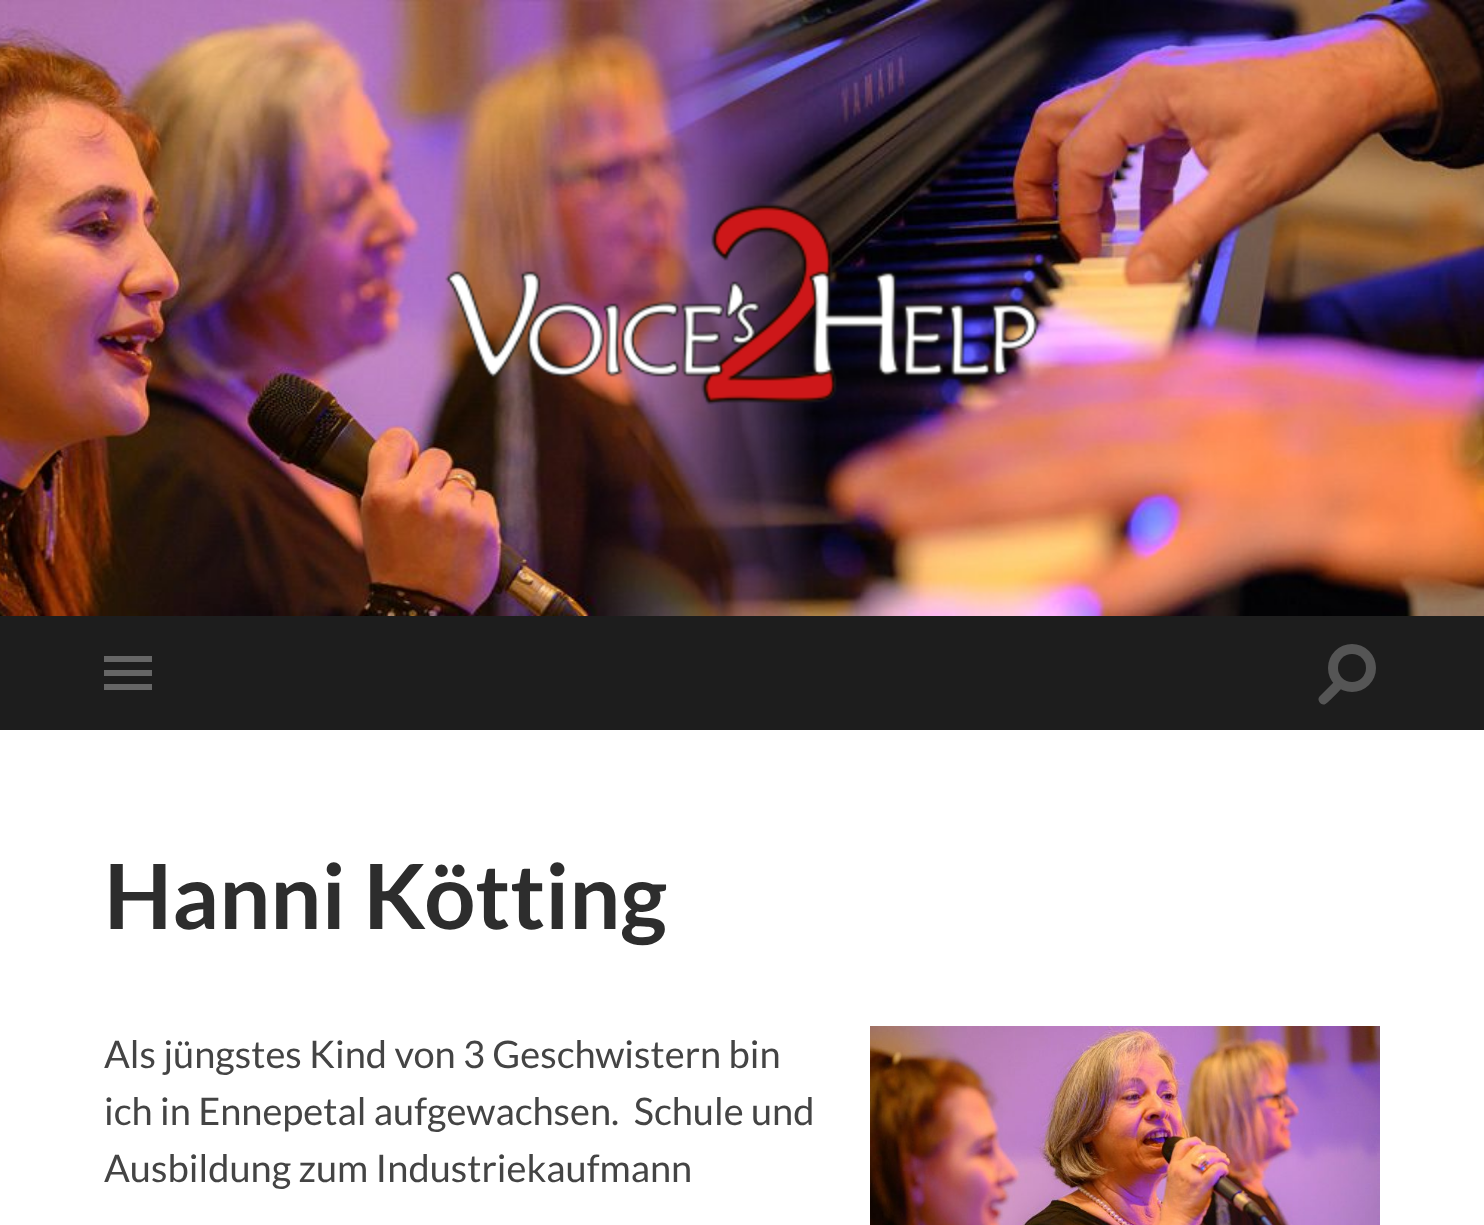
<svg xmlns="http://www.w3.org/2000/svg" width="1484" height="1225">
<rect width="100%" height="100%" fill="#fff"/>
<image x="0" y="0" width="1484" height="616" href="media/1.png"/>
<image x="445" y="203" width="594" height="202" href="media/2.png"/>
<rect y="616" width="1484" height="114" fill="#1d1d1d"/>
<rect x="104" y="656" width="48" height="6" fill="#666"/>
<rect x="104" y="670" width="48" height="6" fill="#666"/>
<rect x="104" y="684" width="48" height="6" fill="#666"/>
<circle cx="1352" cy="668" r="24" fill="#555"/>
<circle cx="1352" cy="668" r="14" fill="#1d1d1d"/>
<path d="M1319.5 696.5l17-17l7 7c-3 3-16.5 17.5-19 18c-4 1-8-5-5-8z" fill="#555"/>
<text x="104" y="929" style="font-family:Lato;font-size:90px;font-weight:bold;fill:#2d2d2d">Hanni Kötting</text>
<text x="104" y="1068" style="font-family:Lato;font-size:38px;fill:#444">Als jüngstes Kind von 3 Geschwistern bin</text>
<image x="870" y="1026" width="510" height="199" href="media/3.png"/>
<text x="104" y="1125" style="font-family:Lato;font-size:38px;fill:#444" xml:space="preserve">ich in Ennepetal aufgewachsen.  Schule und</text>
<text x="104" y="1182" style="font-family:Lato;font-size:38px;fill:#444">Ausbildung zum Industriekaufmann</text>
</svg>
